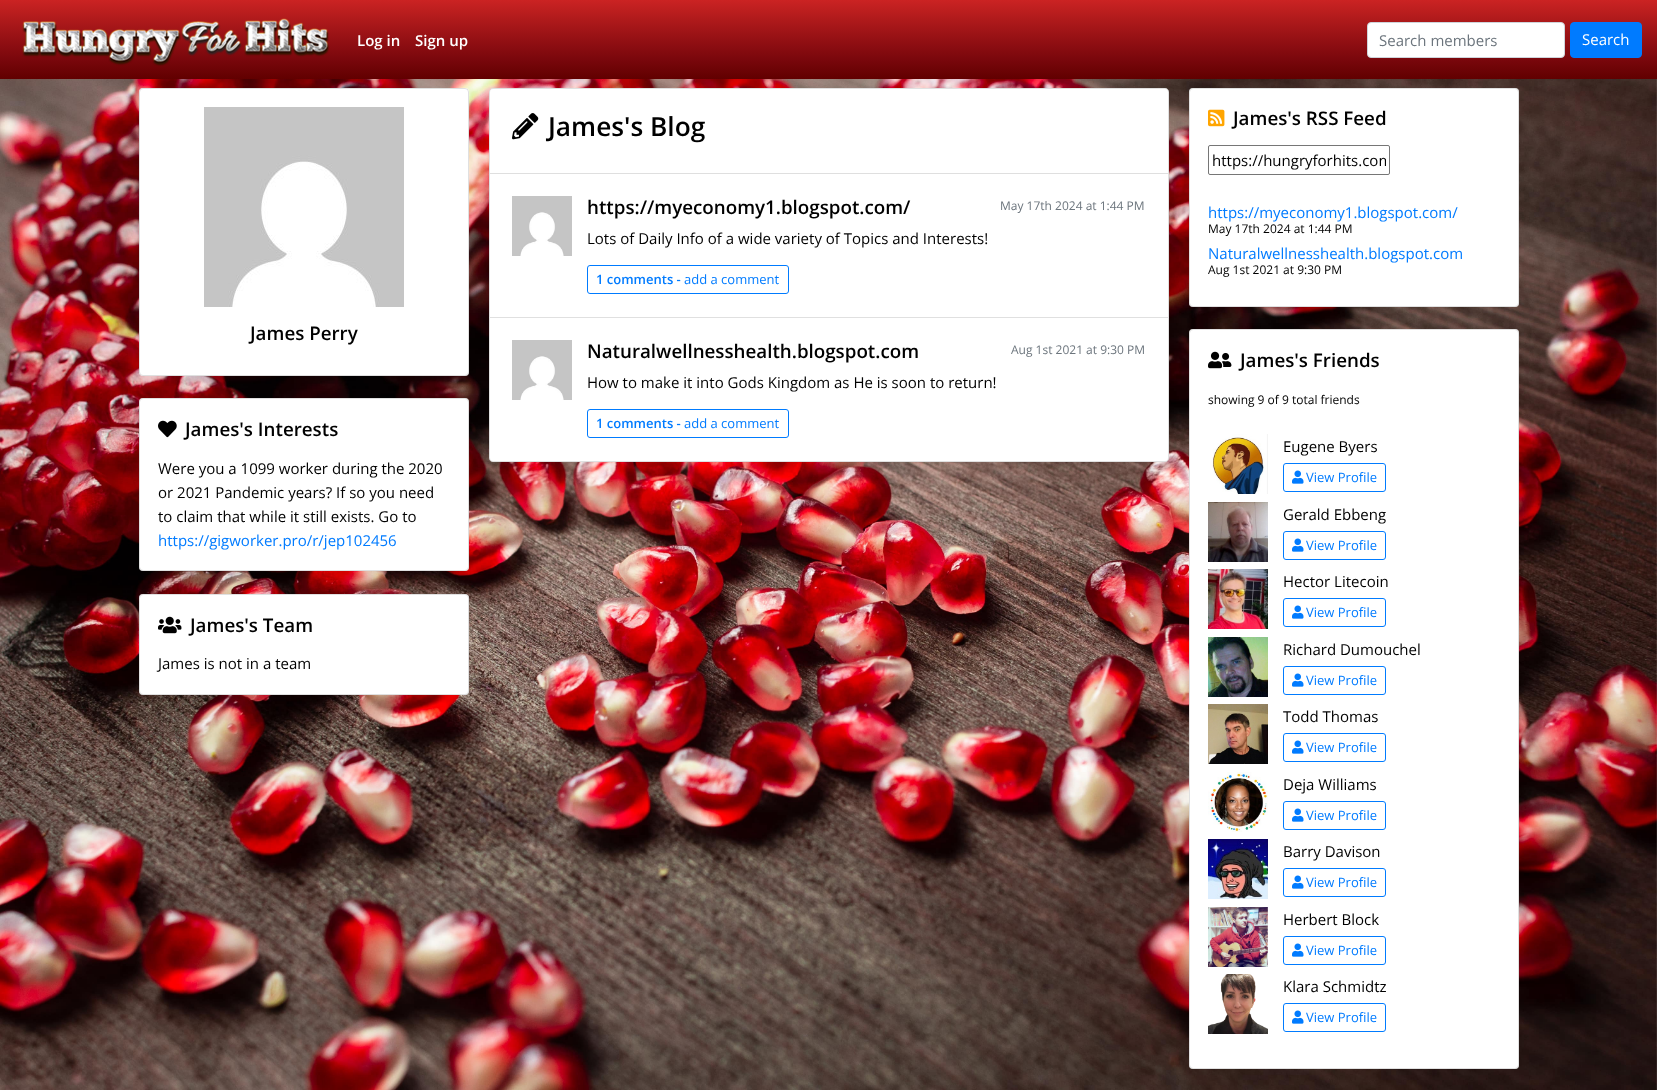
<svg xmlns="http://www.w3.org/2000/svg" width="1657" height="1090">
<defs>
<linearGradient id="g1" gradientUnits="userSpaceOnUse" x1="829" y1="79" x2="829" y2="0"><stop offset="0" stop-color="#610000"/><stop offset="0.25" stop-color="#7a070c"/><stop offset="0.5" stop-color="#941014"/><stop offset="0.75" stop-color="#af1a1b"/><stop offset="1" stop-color="#cb2323"/></linearGradient>
<clipPath id="clip1"><rect x="1212" y="148" width="174" height="24"/></clipPath>
</defs>
<rect width="100%" height="100%" fill="#fff"/>
<image x="0" y="79" width="1657" height="1011" href="media/1.png"/>
<rect width="1657" height="79" fill="url(#g1)"/>
<image x="22" y="18" width="308" height="48" href="media/2.png"/>
<text x="357" y="46" style="font-family:Open Sans;font-size:15px;font-weight:600;fill:#fff">Log in</text>
<text x="415" y="46" style="font-family:Open Sans;font-size:15px;font-weight:600;fill:#fff">Sign up</text>
<rect x="1367.5" y="22.5" width="197" height="35" rx="3.5" fill="#fff" stroke="#ced4da"/>
<text x="1379" y="46" style="font-family:Open Sans;font-size:15px;fill:#6c757d">Search members</text>
<rect x="1570.5" y="22.5" width="71" height="35" rx="3.5" fill="#007bff" stroke="#007bff"/>
<text x="1582" y="45" style="font-family:Open Sans;font-size:15px;fill:#fff">Search</text>
<path d="M493 88h672c2 0 4 2 4 4v82h-680v-82c0-2 2-4 4-4z" fill="#fff"/>
<path d="M493 88.5h672c2 0 3.5 1.5 3.5 3.5v81.5h-679v-81.5c0-2 1.5-3.5 3.5-3.5z" fill="none" stroke="#0000001f"/>
<image x="512" y="113" width="27" height="27" href="media/3.png"/>
<text x="548" y="136" style="font-family:Open Sans;font-size:26.25px;font-weight:600;fill:#000">James's Blog</text>
<rect x="489.5" y="173.5" width="679" height="144" fill="#fff" stroke="#dfdfdf"/>
<image x="512" y="196" width="60" height="60" href="media/4.png"/>
<text x="587" y="214" style="font-family:Open Sans;font-size:18.75px;font-weight:600;fill:#000">https://myeconomy1.blogspot.com/</text>
<text x="1000" y="210" style="font-family:Open Sans;font-size:12px;fill:#6c757d">May 17th 2024 at 1:44 PM</text>
<text x="587" y="244" style="font-family:Open Sans;font-size:15px;fill:#000">Lots of Daily Info of a wide variety of Topics and Interests!</text>
<rect x="587.5" y="265.5" width="201" height="28" rx="2.5" fill="none" stroke="#007bff"/>
<text x="596" y="284" style="font-family:Open Sans;font-size:13px;font-weight:600;fill:#007bff">1 comments -</text>
<text x="684" y="284" style="font-family:Open Sans;font-size:13px;fill:#007bff">add a comment</text>
<path d="M489 317h680v141c0 2-2 4-4 4h-672c-2 0-4-2-4-4z" fill="#fff"/>
<path d="M489.5 317.5h679v140.5c0 2-1.5 3.5-3.5 3.5h-672c-2 0-3.5-1.5-3.5-3.5z" fill="none" stroke="#0000001f"/>
<image x="512" y="340" width="60" height="60" href="media/4.png"/>
<text x="587" y="358" style="font-family:Open Sans;font-size:18.75px;font-weight:600;fill:#000">Naturalwellnesshealth.blogspot.com</text>
<text x="1011" y="354" style="font-family:Open Sans;font-size:12px;fill:#6c757d">Aug 1st 2021 at 9:30 PM</text>
<text x="587" y="388" style="font-family:Open Sans;font-size:15px;fill:#000">How to make it into Gods Kingdom as He is soon to return!</text>
<rect x="587.5" y="409.5" width="201" height="28" rx="2.5" fill="none" stroke="#007bff"/>
<text x="596" y="428" style="font-family:Open Sans;font-size:13px;font-weight:600;fill:#007bff">1 comments -</text>
<text x="684" y="428" style="font-family:Open Sans;font-size:13px;fill:#007bff">add a comment</text>
<rect x="1189" y="88" width="330" height="219" rx="4" fill="#fff"/>
<rect x="1189.5" y="88.5" width="329" height="218" rx="3.5" fill="none" stroke="#0000001f"/>
<image x="1208" y="109" width="17" height="18" href="media/5.png"/>
<text x="1233" y="125" style="font-family:Open Sans;font-size:18.75px;font-weight:600;fill:#000">James's RSS Feed</text>
<rect x="1208.5" y="145.5" width="181" height="29" rx="1.5" fill="none" stroke="#767676"/>
<g clip-path="url(#clip1)">
<text x="1212" y="166" style="font-family:Open Sans;font-size:15px;fill:#000">https://hungryforhits.com</text>
</g>
<text x="1208" y="218" style="font-family:Open Sans;font-size:15px;fill:#007bff">https://myeconomy1.blogspot.com/</text>
<text x="1208" y="233" style="font-family:Open Sans;font-size:12px;fill:#000">May 17th 2024 at 1:44 PM</text>
<text x="1208" y="259" style="font-family:Open Sans;font-size:15px;fill:#007bff">Naturalwellnesshealth.blogspot.com</text>
<text x="1208" y="274" style="font-family:Open Sans;font-size:12px;fill:#000">Aug 1st 2021 at 9:30 PM</text>
<rect x="1189" y="329" width="330" height="740" rx="4" fill="#fff"/>
<rect x="1189.5" y="329.5" width="329" height="739" rx="3.5" fill="none" stroke="#0000001f"/>
<image x="1208" y="351" width="24" height="18" href="media/6.png"/>
<text x="1240" y="367" style="font-family:Open Sans;font-size:18.75px;font-weight:600;fill:#000">James's Friends</text>
<text x="1208" y="404" style="font-family:Open Sans;font-size:12px;fill:#000">showing 9 of 9 total friends</text>
<image x="1212" y="434" width="56" height="60" href="media/7.png"/>
<text x="1283" y="452" style="font-family:Open Sans;font-size:15px;fill:#000">Eugene Byers</text>
<rect x="1283.5" y="463.5" width="102" height="28" rx="2.5" fill="none" stroke="#007bff"/>
<image x="1292" y="470" width="12" height="14" href="media/8.png"/>
<text x="1306" y="482" style="font-family:Open Sans;font-size:13px;fill:#007bff">View Profile</text>
<image x="1208" y="502" width="60" height="60" href="media/9.png"/>
<text x="1283" y="520" style="font-family:Open Sans;font-size:15px;fill:#000">Gerald Ebbeng</text>
<rect x="1283.5" y="531.5" width="102" height="28" rx="2.5" fill="none" stroke="#007bff"/>
<image x="1292" y="538" width="12" height="14" href="media/8.png"/>
<text x="1306" y="550" style="font-family:Open Sans;font-size:13px;fill:#007bff">View Profile</text>
<image x="1208" y="569" width="60" height="60" href="media/10.png"/>
<text x="1283" y="587" style="font-family:Open Sans;font-size:15px;fill:#000">Hector Litecoin</text>
<rect x="1283.5" y="598.5" width="102" height="28" rx="2.5" fill="none" stroke="#007bff"/>
<image x="1292" y="605" width="12" height="14" href="media/8.png"/>
<text x="1306" y="617" style="font-family:Open Sans;font-size:13px;fill:#007bff">View Profile</text>
<image x="1208" y="637" width="60" height="60" href="media/11.png"/>
<text x="1283" y="655" style="font-family:Open Sans;font-size:15px;fill:#000">Richard Dumouchel</text>
<rect x="1283.5" y="666.5" width="102" height="28" rx="2.5" fill="none" stroke="#007bff"/>
<image x="1292" y="673" width="12" height="14" href="media/8.png"/>
<text x="1306" y="685" style="font-family:Open Sans;font-size:13px;fill:#007bff">View Profile</text>
<image x="1208" y="704" width="60" height="60" href="media/12.png"/>
<text x="1283" y="722" style="font-family:Open Sans;font-size:15px;fill:#000">Todd Thomas</text>
<rect x="1283.5" y="733.5" width="102" height="28" rx="2.5" fill="none" stroke="#007bff"/>
<image x="1292" y="740" width="12" height="14" href="media/8.png"/>
<text x="1306" y="752" style="font-family:Open Sans;font-size:13px;fill:#007bff">View Profile</text>
<image x="1208" y="772" width="60" height="60" href="media/13.png"/>
<text x="1283" y="790" style="font-family:Open Sans;font-size:15px;fill:#000">Deja Williams</text>
<rect x="1283.5" y="801.5" width="102" height="28" rx="2.5" fill="none" stroke="#007bff"/>
<image x="1292" y="808" width="12" height="14" href="media/8.png"/>
<text x="1306" y="820" style="font-family:Open Sans;font-size:13px;fill:#007bff">View Profile</text>
<image x="1208" y="839" width="60" height="60" href="media/14.png"/>
<text x="1283" y="857" style="font-family:Open Sans;font-size:15px;fill:#000">Barry Davison</text>
<rect x="1283.5" y="868.5" width="102" height="28" rx="2.5" fill="none" stroke="#007bff"/>
<image x="1292" y="875" width="12" height="14" href="media/8.png"/>
<text x="1306" y="887" style="font-family:Open Sans;font-size:13px;fill:#007bff">View Profile</text>
<image x="1208" y="907" width="60" height="60" href="media/15.png"/>
<text x="1283" y="925" style="font-family:Open Sans;font-size:15px;fill:#000">Herbert Block</text>
<rect x="1283.5" y="936.5" width="102" height="28" rx="2.5" fill="none" stroke="#007bff"/>
<image x="1292" y="943" width="12" height="14" href="media/8.png"/>
<text x="1306" y="955" style="font-family:Open Sans;font-size:13px;fill:#007bff">View Profile</text>
<image x="1208" y="974" width="60" height="60" href="media/16.png"/>
<text x="1283" y="992" style="font-family:Open Sans;font-size:15px;fill:#000">Klara Schmidtz</text>
<rect x="1283.5" y="1003.5" width="102" height="28" rx="2.5" fill="none" stroke="#007bff"/>
<image x="1292" y="1010" width="12" height="14" href="media/8.png"/>
<text x="1306" y="1022" style="font-family:Open Sans;font-size:13px;fill:#007bff">View Profile</text>
<rect x="139" y="88" width="330" height="288" rx="4" fill="#fff"/>
<rect x="139.5" y="88.5" width="329" height="287" rx="3.5" fill="none" stroke="#0000001f"/>
<image x="204" y="107" width="200" height="200" href="media/17.png"/>
<text x="250" y="340" style="font-family:Open Sans;font-size:18.75px;font-weight:600;fill:#000">James Perry</text>
<rect x="139" y="398" width="330" height="173" rx="4" fill="#fff"/>
<rect x="139.5" y="398.5" width="329" height="172" rx="3.5" fill="none" stroke="#0000001f"/>
<image x="158" y="420" width="19" height="18" href="media/18.png"/>
<text x="185" y="436" style="font-family:Open Sans;font-size:18.75px;font-weight:600;fill:#000">James's Interests</text>
<text x="158" y="474" style="font-family:Open Sans;font-size:15px;fill:#000">Were you a 1099 worker during the 2020</text>
<text x="158" y="498" style="font-family:Open Sans;font-size:15px;fill:#000">or 2021 Pandemic years? If so you need</text>
<text x="158" y="522" style="font-family:Open Sans;font-size:15px;fill:#000">to claim that while it still exists. Go to</text>
<text x="158" y="546" style="font-family:Open Sans;font-size:15px;fill:#007bff">https://gigworker.pro/r/jep102456</text>
<rect x="139" y="594" width="330" height="101" rx="4" fill="#fff"/>
<rect x="139.5" y="594.5" width="329" height="100" rx="3.5" fill="none" stroke="#0000001f"/>
<image x="158" y="616" width="24" height="18" href="media/19.png"/>
<text x="190" y="632" style="font-family:Open Sans;font-size:18.75px;font-weight:600;fill:#000">James's Team</text>
<text x="158" y="669" style="font-family:Open Sans;font-size:15px;fill:#000">James is not in a team</text>
</svg>
